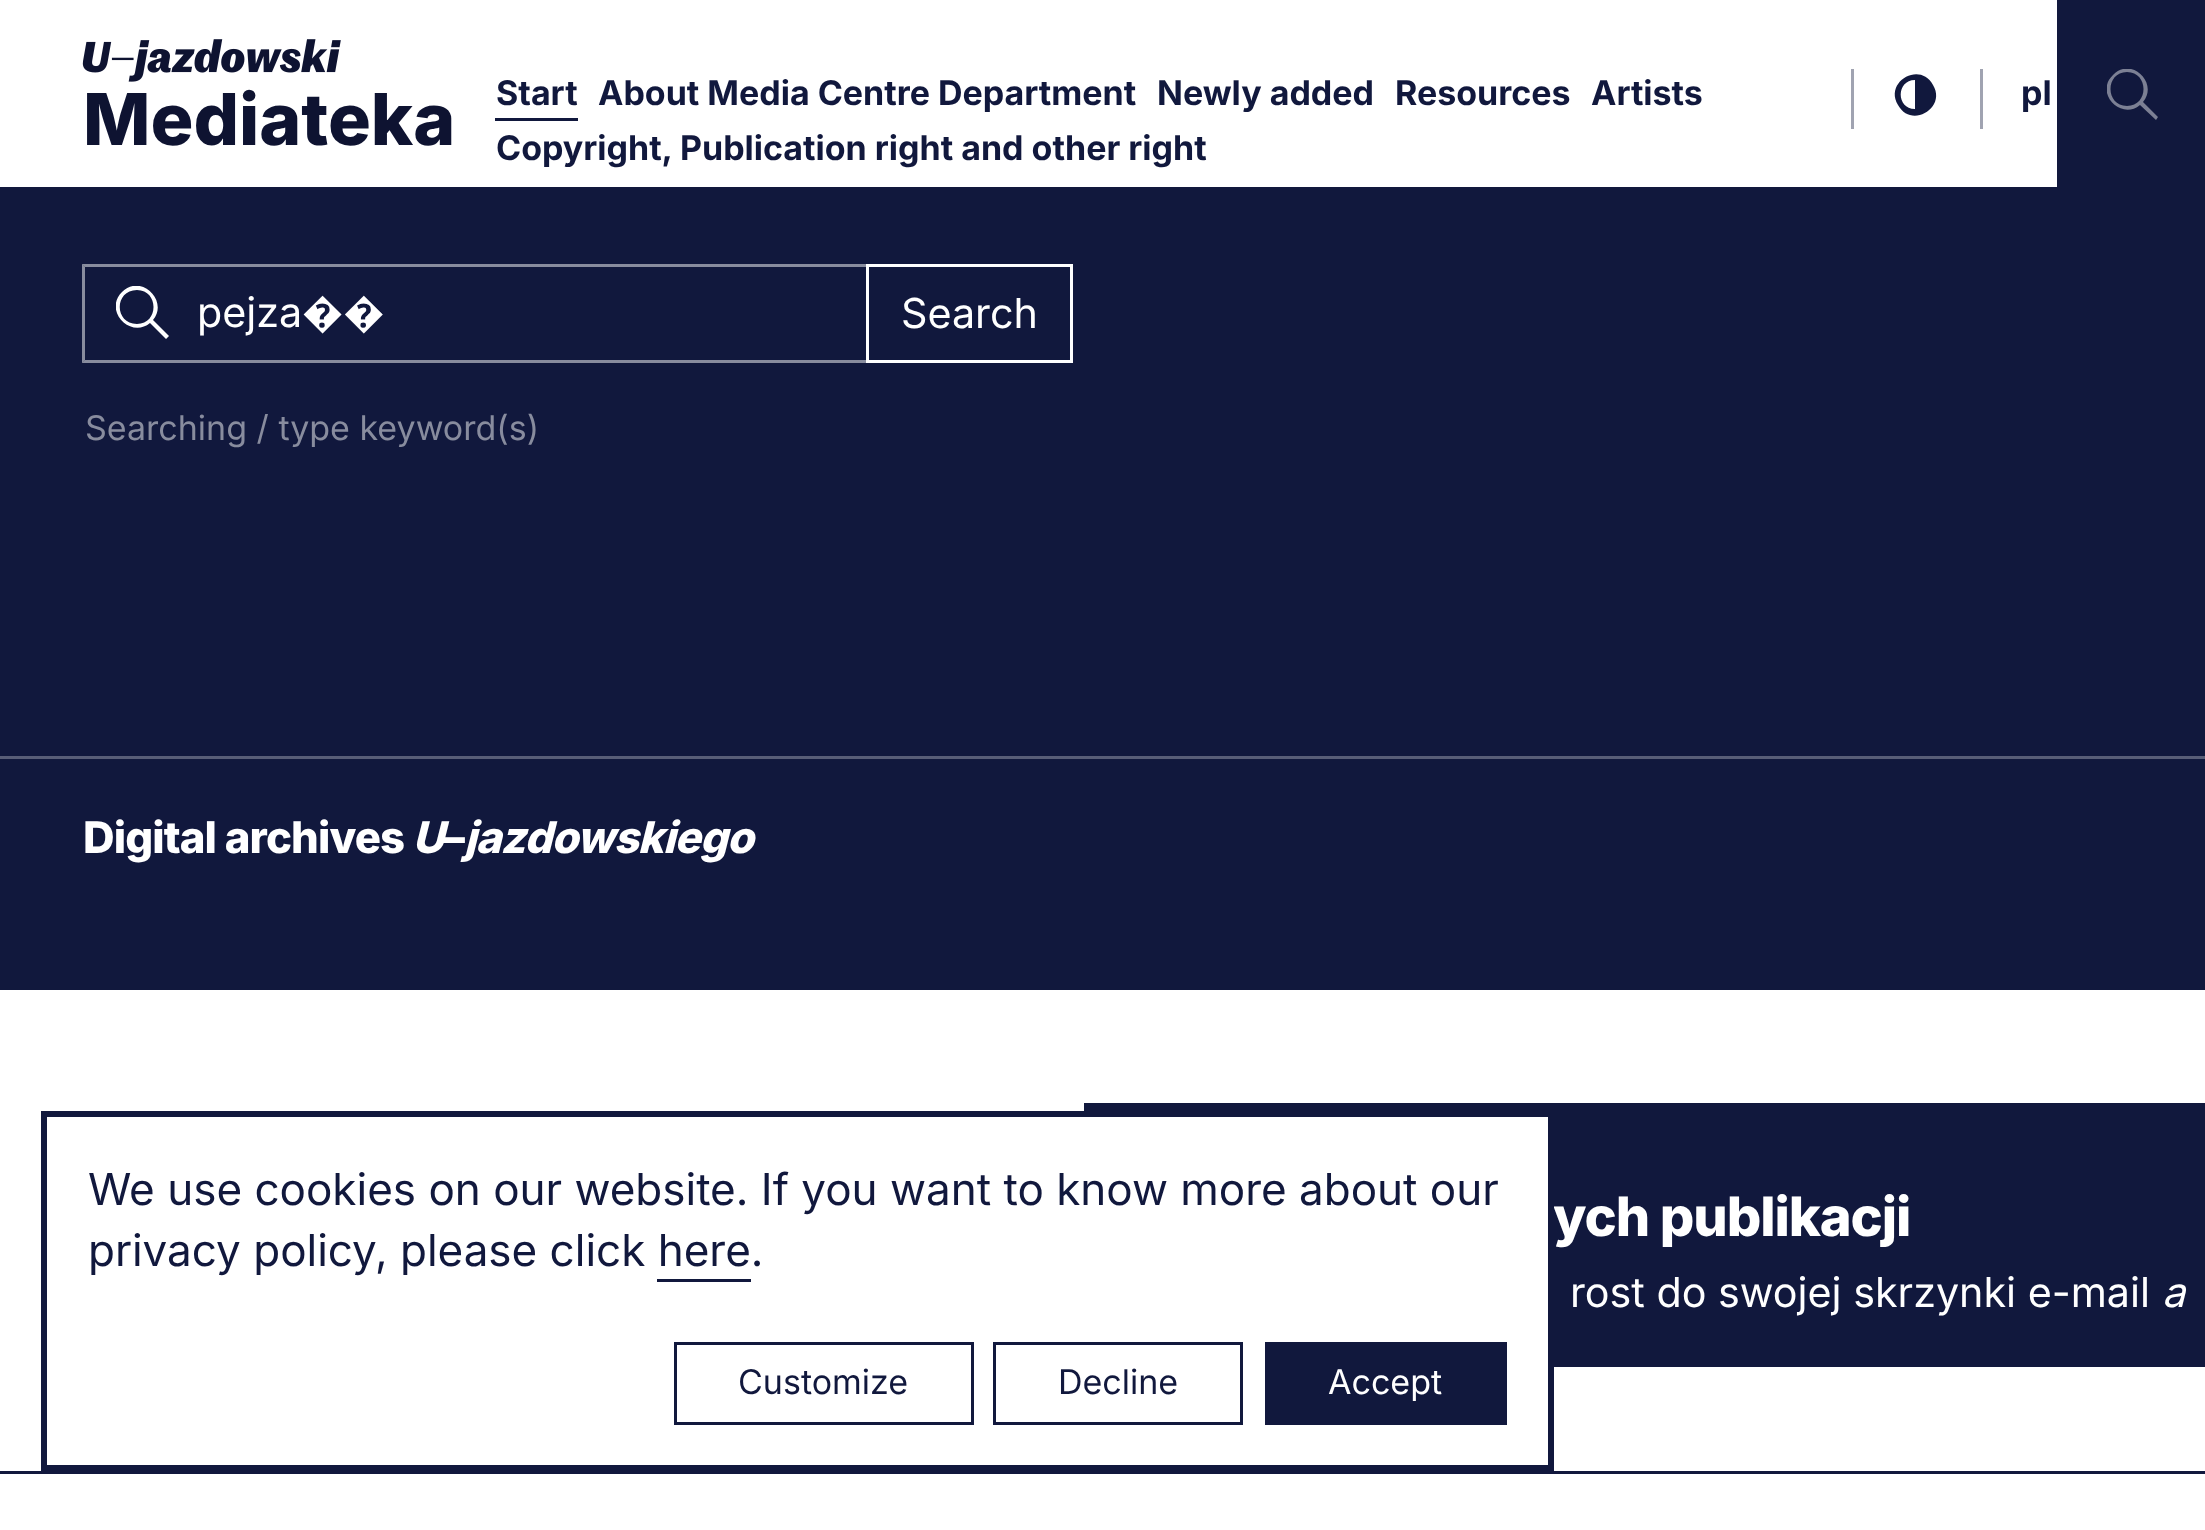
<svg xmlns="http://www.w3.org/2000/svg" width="2205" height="1530">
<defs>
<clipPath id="clip1"><rect x="2107" y="69" width="52" height="52"/></clipPath>
<clipPath id="clip2"><rect x="116" y="286" width="55" height="55"/></clipPath>
<clipPath id="clip3"><rect x="657" y="1221" width="94" height="61"/></clipPath>
</defs>
<rect width="100%" height="100%" fill="#fff"/>
<image x="82" y="39" width="259" height="43" href="media/1.png"/>
<text x="83" y="145" style="font-family:Inter;font-size:71.5px;font-weight:800;fill:#0e1331">Mediateka</text>
<text x="496" y="105" style="font-family:Inter;font-size:34px;font-weight:bold;fill:#11183d">Start</text>
<rect x="495" y="118" width="83" height="3" fill="#11183d"/>
<text x="598" y="105" style="font-family:Inter;font-size:34px;font-weight:bold;fill:#11183d">About Media Centre Department</text>
<text x="1157" y="105" style="font-family:Inter;font-size:34px;font-weight:bold;fill:#11183d">Newly added</text>
<text x="1395" y="105" style="font-family:Inter;font-size:34px;font-weight:bold;fill:#11183d">Resources</text>
<text x="1591" y="105" style="font-family:Inter;font-size:34px;font-weight:bold;fill:#11183d">Artists</text>
<text x="496" y="160" style="font-family:Inter;font-size:34px;font-weight:bold;fill:#11183d">Copyright, Publication right and other right</text>
<rect x="1851" y="69" width="3" height="60" fill="#a0a3b1"/>
<path d="M1933 85c-13-24-49-3-35 20c13 24 49 3 35-20zm-18 24c-19 0-19-29 0-29z" fill="#11183d"/>
<rect x="1980" y="69" width="3" height="60" fill="#a0a3b1"/>
<text x="2021" y="105" style="font-family:Inter;font-size:34px;font-weight:bold;fill:#11183d">pl</text>
<rect x="2057" width="148" height="187" fill="#11183d"/>
<g clip-path="url(#clip1)">
<path d="M2143 102c16-19-12-46-30-27c-19 18 8 46 27 30l16 15l2-3zm-16 4c-22 0-22-34 0-34c22 0 22 34 0 34z" fill="#7c8094"/>
</g>
<rect y="187" width="2205" height="803" fill="#11183d"/>
<g clip-path="url(#clip2)">
<path d="M153 320c16-19-12-47-31-28c-19 19 9 47 28 31l16 16l3-3zm-16 4c-23 0-23-34 0-34c22 0 22 34 0 34z" fill="#fff"/>
</g>
<path d="M82 264h784v3h-781z" fill="#888c9e"/>
<path d="M866 363h-784l3-3h781z" fill="#888c9e"/>
<path d="M82 363v-99l3 3v93z" fill="#ffffff80"/>
<text x="197" y="327" style="font-family:Inter;font-size:41.25px;fill:#fff">pejza</text>
<text x="302" y="327" style="font-family:Noto Sans;font-size:41.25px;fill:#fff">��</text>
<rect x="867.5" y="265.5" width="204" height="96" fill="none" stroke="#fff" stroke-width="3"/>
<text x="901" y="328" style="font-family:Inter;font-size:41.25px;fill:#fff">Search</text>
<text x="85" y="440" style="font-family:Inter;font-size:34px;fill:#888c9e">Searching / type keyword(s)</text>
<rect y="756" width="2205" height="3" fill="#585d77"/>
<text x="83" y="853" style="font-family:Inter;font-size:43.75px;font-weight:800;letter-spacing:-0.9px;fill:#fff">Digital archives</text>
<text x="412" y="853" style="font-family:Inter;font-size:43.75px;font-weight:800;font-style:italic;letter-spacing:-0.9px;fill:#fff">U</text>
<text x="443" y="853" style="font-family:Inter;font-size:43.75px;font-weight:800;letter-spacing:-0.9px;fill:#fff">–</text>
<text x="464" y="853" style="font-family:Inter;font-size:43.75px;font-weight:800;font-style:italic;letter-spacing:-0.9px;fill:#fff">jazdowskiego</text>
<rect x="1084" y="1103" width="1121" height="264" fill="#11183d"/>
<text x="1553" y="1236" style="font-family:Inter;font-size:54.25px;font-weight:800;letter-spacing:-1.1px;fill:#fff">ych publikacji</text>
<text x="1570" y="1307" style="font-family:Inter;font-size:41.25px;fill:#fff">rost do swojej skrzynki e-mail</text>
<text x="2162" y="1307" style="font-family:Inter;font-size:41.25px;font-style:italic;fill:#fff">a</text>
<rect y="1471" width="2205" height="3" fill="#11183d"/>
<rect x="1084" y="1117" width="464" height="250" fill="#fff"/>
<rect x="44" y="1114" width="1507" height="354" fill="none" stroke="#11183d" stroke-width="6"/>
<text x="88" y="1205" style="font-family:Inter;font-size:44px;fill:#11183d">We use cookies on our website. If you want to know more about our</text>
<text x="88" y="1266" style="font-family:Inter;font-size:44px;fill:#11183d">privacy policy, please click here.</text>
<g clip-path="url(#clip3)">
<path d="M385 949h638v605h-638zm272 264h94c1 0 3 1 3 3v60c0 2-2 3-3 3h-94c-1 0-3-1-3-3v-60c0-2 2-3 3-3z" fill="#11183d" fill-rule="evenodd"/>
</g>
<rect x="675.5" y="1343.5" width="297" height="80" fill="none" stroke="#11183d" stroke-width="3"/>
<text x="738" y="1394" style="font-family:Inter;font-size:34px;fill:#11183d">Customize</text>
<rect x="994.5" y="1343.5" width="247" height="80" fill="none" stroke="#11183d" stroke-width="3"/>
<text x="1058" y="1394" style="font-family:Inter;font-size:34px;fill:#11183d">Decline</text>
<rect x="1265" y="1342" width="242" height="83" fill="#11183d"/>
<text x="1328" y="1394" style="font-family:Inter;font-size:34px;fill:#fff">Accept</text>
</svg>
